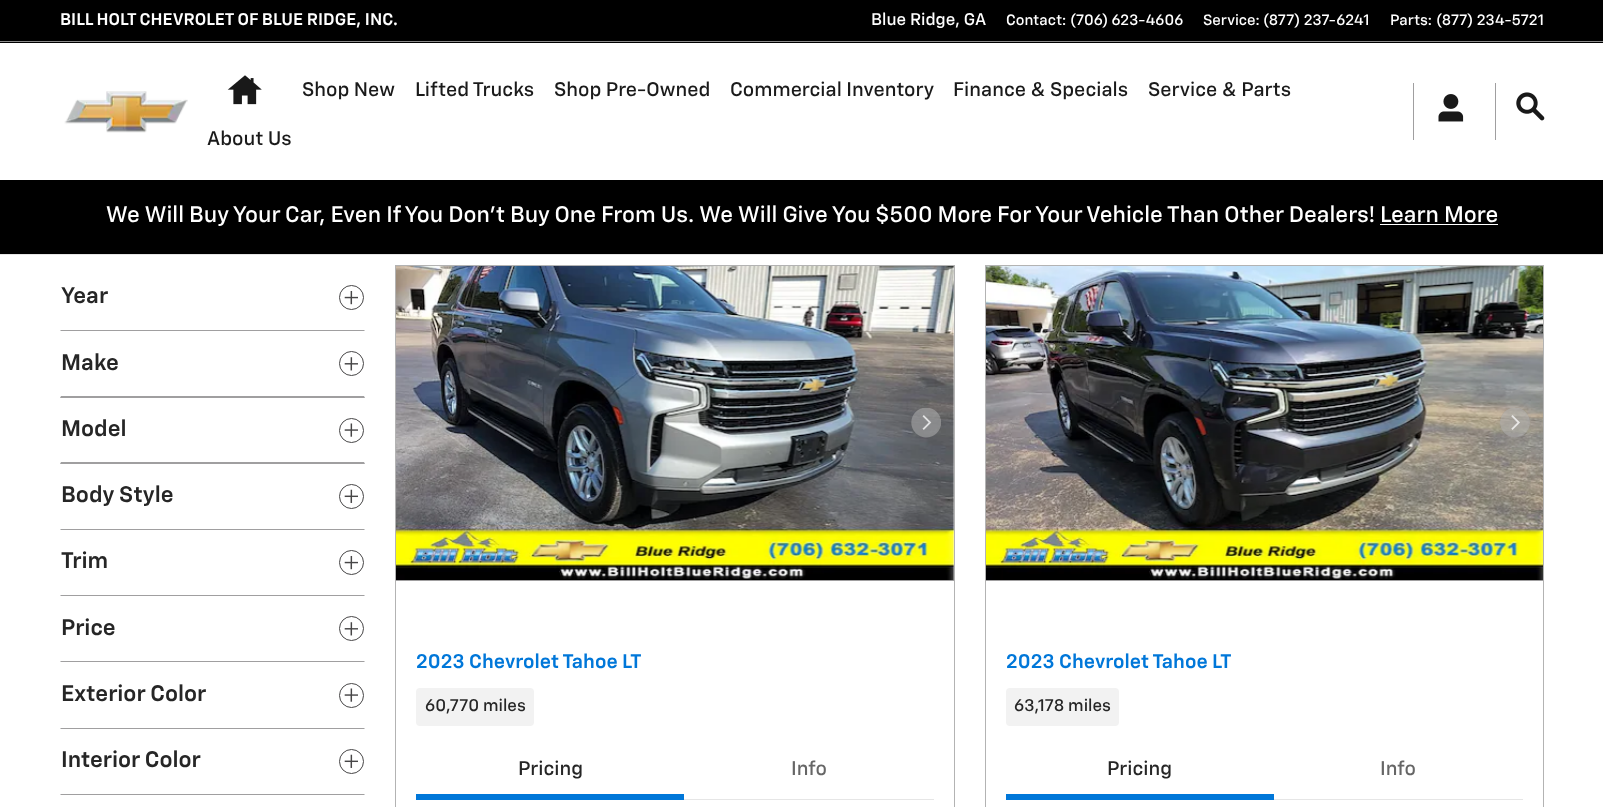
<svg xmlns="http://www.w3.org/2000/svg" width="1603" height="807">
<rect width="100%" height="100%" fill="#fff"/>
<rect y="254" width="1603" height="1" fill="#e6e6e6"/>
<rect width="1603" height="43" fill="#000"/>
<rect y="41" width="1603" height="1" fill="#8c8c8c"/>
<text x="60" y="25" style="font-family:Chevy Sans;font-size:16.9px;font-weight:600;fill:#fff">BILL HOLT CHEVROLET OF BLUE RIDGE, INC.</text>
<text x="871" y="25" style="font-family:Chevy Sans;font-size:16.9px;font-weight:500;fill:#fff">Blue Ridge, GA</text>
<text x="1006" y="25" style="font-family:Chevy Sans;font-size:15px;font-weight:500;fill:#fff">Contact:</text>
<text x="1070" y="25" style="font-family:Chevy Sans;font-size:15px;font-weight:500;fill:#fff">(706) 623-4606</text>
<text x="1203" y="25" style="font-family:Chevy Sans;font-size:15px;font-weight:500;fill:#fff">Service: (877) 237-6241</text>
<text x="1390" y="25" style="font-family:Chevy Sans;font-size:15px;font-weight:500;fill:#fff">Parts:</text>
<text x="1436" y="25" style="font-family:Chevy Sans;font-size:15px;font-weight:500;fill:#fff">(877) 234-5721</text>
<image x="64" y="91" width="124" height="42" href="media/1.png"/>
<image x="227" y="75" width="35" height="30" href="media/2.png"/>
<text x="302" y="96" style="font-family:Chevy Sans;font-size:19.75px;font-weight:500;fill:#1a1a1a">Shop New</text>
<text x="415" y="96" style="font-family:Chevy Sans;font-size:19.75px;font-weight:500;fill:#1a1a1a">Lifted Trucks</text>
<text x="554" y="96" style="font-family:Chevy Sans;font-size:19.75px;font-weight:500;fill:#1a1a1a">Shop Pre-Owned</text>
<text x="730" y="96" style="font-family:Chevy Sans;font-size:19.75px;font-weight:500;fill:#1a1a1a">Commercial Inventory</text>
<text x="953" y="96" style="font-family:Chevy Sans;font-size:19.75px;font-weight:500;fill:#1a1a1a">Finance &amp; Specials</text>
<text x="1148" y="96" style="font-family:Chevy Sans;font-size:19.75px;font-weight:500;fill:#1a1a1a">Service &amp; Parts</text>
<text x="207" y="145" style="font-family:Chevy Sans;font-size:19.75px;font-weight:500;fill:#1a1a1a">About Us</text>
<rect x="1413" y="83" width="1" height="57" fill="#a09fa0"/>
<image x="1438" y="94" width="26" height="28" href="media/3.png"/>
<rect x="1495" y="83" width="1" height="57" fill="#a09fa0"/>
<image x="1516" y="92" width="29" height="29" href="media/4.png"/>
<rect y="180" width="1603" height="74" fill="#000"/>
<text x="106" y="222" style="font-family:Chevy Sans;font-size:22.5px;font-weight:500;fill:#fff">We Will Buy Your Car, Even If You Don't Buy One From Us. We Will Give You $500 More For Your Vehicle Than Other Dealers! Learn More</text>
<rect x="1380" y="224" width="118" height="1" fill="#fff"/>
<path d="M365 331h-305l1-1h303z" fill="#a09fa0"/>
<text x="61" y="303" style="font-family:Chevy Sans;font-size:22.5px;font-weight:600;fill:#262626">Year</text>
<circle cx="351.5" cy="297.5" r="12" fill="none" stroke="#474647"/>
<image x="344" y="290" width="14" height="15" href="media/5.png"/>
<path d="M365 398h-305l1-2h303z" fill="#a09fa0"/>
<text x="61" y="370" style="font-family:Chevy Sans;font-size:22.5px;font-weight:600;fill:#262626">Make</text>
<circle cx="351.5" cy="363.5" r="12" fill="none" stroke="#474647"/>
<image x="344" y="357" width="14" height="14" href="media/6.png"/>
<path d="M365 464h-305l1-2h303z" fill="#a09fa0"/>
<text x="61" y="436" style="font-family:Chevy Sans;font-size:22.5px;font-weight:600;fill:#262626">Model</text>
<circle cx="351.5" cy="430.5" r="12" fill="none" stroke="#474647"/>
<image x="344" y="423" width="14" height="14" href="media/7.png"/>
<path d="M365 530h-305l1-1h303z" fill="#a09fa0"/>
<text x="61" y="502" style="font-family:Chevy Sans;font-size:22.5px;font-weight:600;fill:#262626">Body Style</text>
<circle cx="351.5" cy="496.5" r="12" fill="none" stroke="#474647"/>
<image x="344" y="489" width="14" height="14" href="media/8.png"/>
<path d="M365 596h-305l1-1h303z" fill="#a09fa0"/>
<text x="61" y="568" style="font-family:Chevy Sans;font-size:22.5px;font-weight:600;fill:#262626">Trim</text>
<circle cx="351.5" cy="562.5" r="12" fill="none" stroke="#474647"/>
<image x="344" y="555" width="14" height="15" href="media/5.png"/>
<path d="M365 662h-305l1-1h303z" fill="#a09fa0"/>
<text x="61" y="635" style="font-family:Chevy Sans;font-size:22.5px;font-weight:600;fill:#262626">Price</text>
<circle cx="351.5" cy="628.5" r="12" fill="none" stroke="#474647"/>
<image x="344" y="622" width="14" height="14" href="media/6.png"/>
<path d="M365 729h-305l1-1h303z" fill="#a09fa0"/>
<text x="61" y="701" style="font-family:Chevy Sans;font-size:22.5px;font-weight:600;fill:#262626">Exterior Color</text>
<circle cx="351.5" cy="695.5" r="12" fill="none" stroke="#474647"/>
<image x="344" y="688" width="14" height="14" href="media/7.png"/>
<path d="M365 795h-305l1-1h303z" fill="#a09fa0"/>
<text x="61" y="767" style="font-family:Chevy Sans;font-size:22.5px;font-weight:600;fill:#262626">Interior Color</text>
<circle cx="351.5" cy="761.5" r="12" fill="none" stroke="#474647"/>
<image x="344" y="754" width="14" height="14" href="media/8.png"/>
<rect x="395.5" y="265.5" width="559" height="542" fill="none" stroke="#b3b3b3"/>
<rect x="396" y="580" width="558" height="1" fill="#a09fa0"/>
<image x="396" y="266" width="558" height="314" href="media/9.png"/>
<image x="911" y="408" width="30" height="30" href="media/10.png"/>
<text x="416" y="668" style="font-family:Chevy Sans;font-size:19.75px;font-weight:600;fill:#0077d9">2023 Chevrolet Tahoe LT</text>
<rect x="416" y="688" width="118" height="38" rx="4" fill="#f2f2f2"/>
<text x="425" y="711" style="font-family:Chevy Sans;font-size:16.9px;font-weight:500;fill:#262626">60,770 miles</text>
<rect x="684" y="799" width="250" height="1" fill="#e6e6e6"/>
<rect x="416" y="794" width="268" height="6" fill="#0077d9"/>
<text x="518" y="775" style="font-family:Chevy Sans;font-size:19.75px;font-weight:500;fill:#262626">Pricing</text>
<text x="791" y="775" style="font-family:Chevy Sans;font-size:19.75px;font-weight:500;fill:#666">Info</text>
<rect x="985.5" y="265.5" width="558" height="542" fill="none" stroke="#b3b3b3"/>
<rect x="986" y="580" width="557" height="1" fill="#a09fa0"/>
<image x="986" y="266" width="557" height="314" href="media/11.png"/>
<image x="1500" y="408" width="30" height="30" href="media/12.png"/>
<text x="1006" y="668" style="font-family:Chevy Sans;font-size:19.75px;font-weight:600;fill:#0077d9">2023 Chevrolet Tahoe LT</text>
<rect x="1006" y="688" width="113" height="38" rx="4" fill="#f2f2f2"/>
<text x="1014" y="711" style="font-family:Chevy Sans;font-size:16.9px;font-weight:500;fill:#262626">63,178 miles</text>
<rect x="1274" y="799" width="249" height="1" fill="#e6e6e6"/>
<rect x="1006" y="794" width="268" height="6" fill="#0077d9"/>
<text x="1107" y="775" style="font-family:Chevy Sans;font-size:19.75px;font-weight:500;fill:#262626">Pricing</text>
<text x="1380" y="775" style="font-family:Chevy Sans;font-size:19.75px;font-weight:500;fill:#666">Info</text>
</svg>
